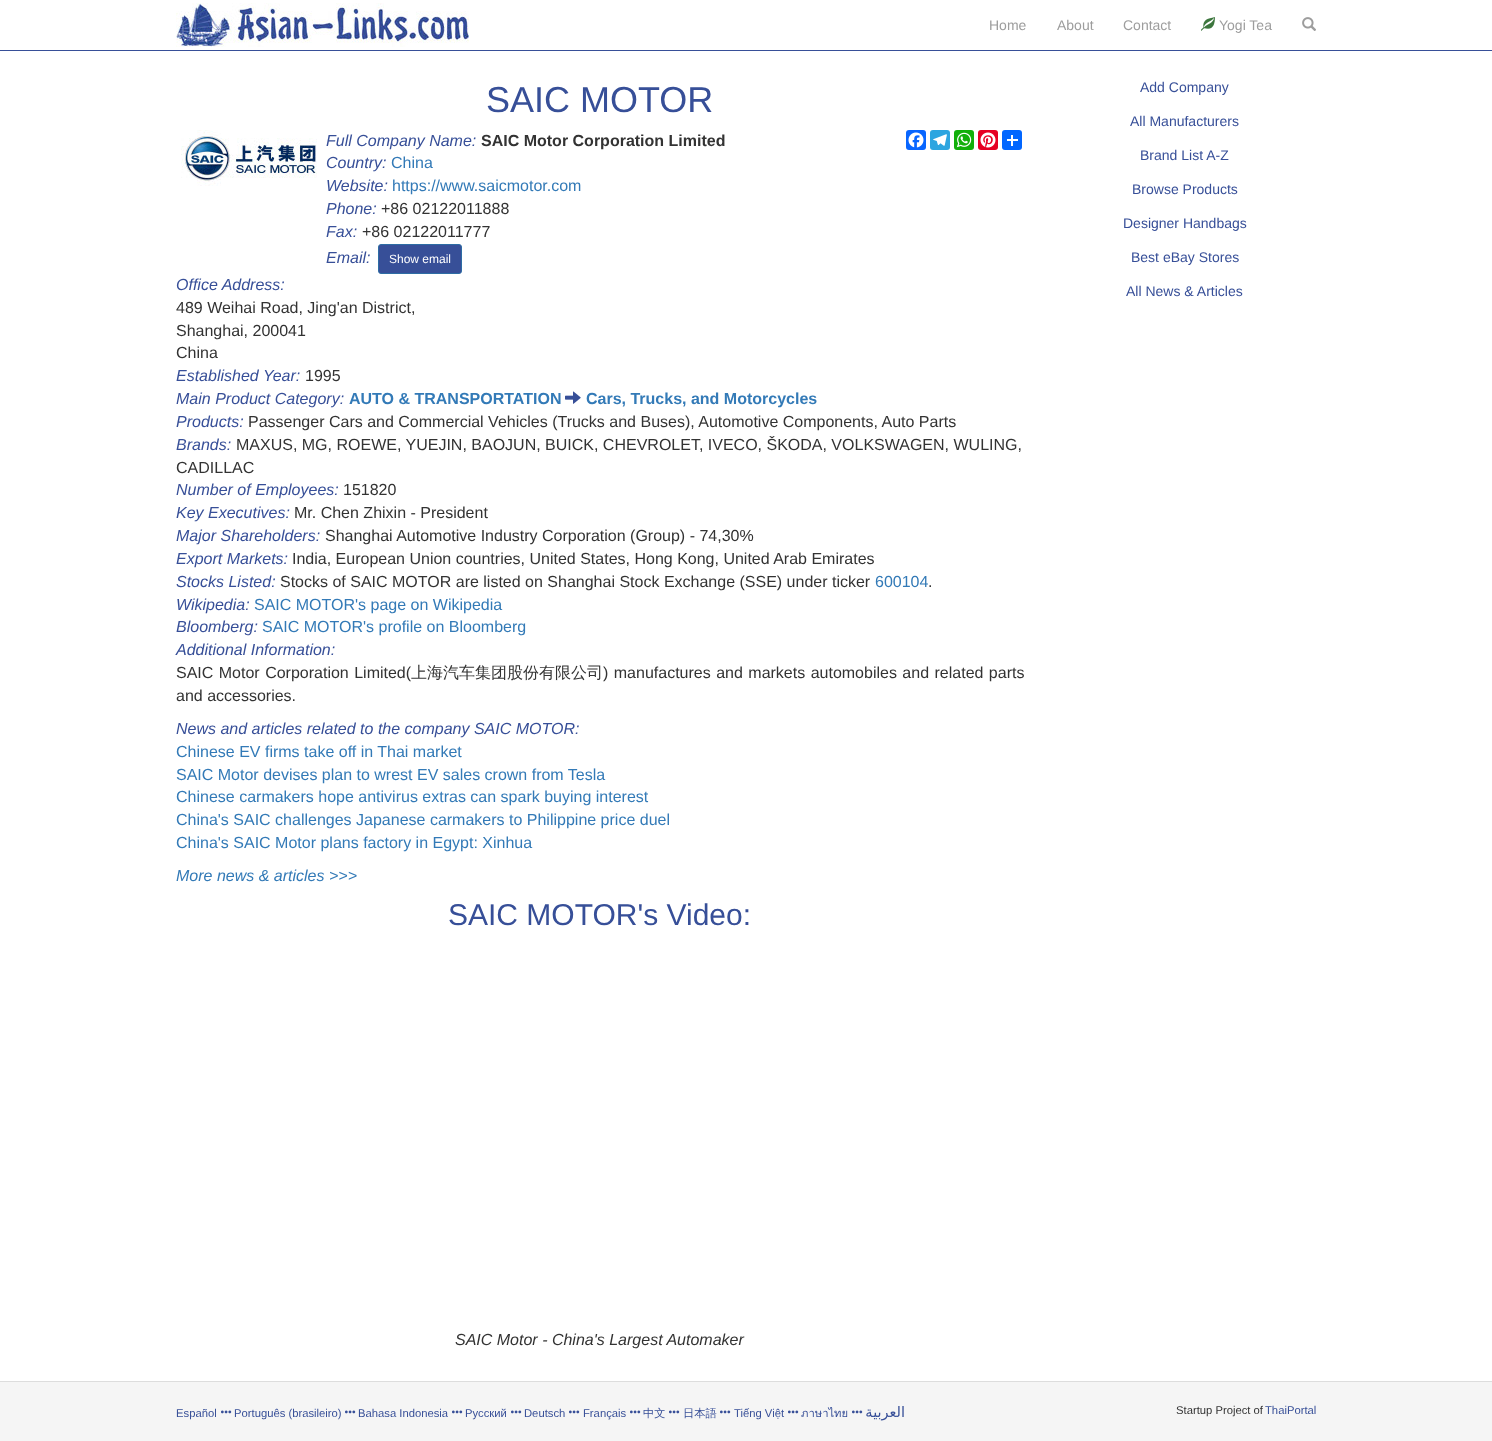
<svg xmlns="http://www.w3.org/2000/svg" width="1492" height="1441">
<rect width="100%" height="100%" fill="#fff"/>
<rect y="50" width="1492" height="1" fill="#374f98"/>
<image x="176" y="3" width="293" height="44" href="media/1.png"/>
<text x="989" y="30" style="font-family:Liberation Sans;font-size:14px;fill:#9d9d9d">Home</text>
<text x="1057" y="30" style="font-family:Liberation Sans;font-size:14px;fill:#9d9d9d">About</text>
<text x="1123" y="30" style="font-family:Liberation Sans;font-size:14px;fill:#9d9d9d">Contact</text>
<image x="1201" y="17" width="14" height="14" href="media/2.png"/>
<text x="1219" y="30" style="font-family:Liberation Sans;font-size:14px;fill:#9d9d9d">Yogi Tea</text>
<image x="1302" y="17" width="14" height="14" href="media/3.png"/>
<text x="486" y="112" style="font-family:Liberation Sans;font-size:36px;fill:#374f98">SAIC MOTOR</text>
<image x="181" y="130" width="136" height="56" href="media/4.png"/>
<text x="326" y="146" style="font-family:Liberation Sans;font-size:16px;font-style:italic;fill:#374f98">Full Company Name:</text>
<text x="481" y="146" style="font-family:Liberation Sans;font-size:16px;font-weight:bold;fill:#333">SAIC Motor Corporation Limited</text>
<text x="326" y="168" style="font-family:Liberation Sans;font-size:16px;font-style:italic;fill:#374f98">Country:</text>
<text x="391" y="168" style="font-family:Liberation Sans;font-size:16px;fill:#337ab7">China</text>
<text x="326" y="191" style="font-family:Liberation Sans;font-size:16px;font-style:italic;fill:#374f98">Website:</text>
<text x="392" y="191" style="font-family:Liberation Sans;font-size:16px;fill:#337ab7">https://www.saicmotor.com</text>
<text x="326" y="214" style="font-family:Liberation Sans;font-size:16px;font-style:italic;fill:#374f98">Phone:</text>
<text x="381" y="214" style="font-family:Liberation Sans;font-size:16px;fill:#333">+86 02122011888</text>
<text x="326" y="237" style="font-family:Liberation Sans;font-size:16px;font-style:italic;fill:#374f98">Fax:</text>
<text x="362" y="237" style="font-family:Liberation Sans;font-size:16px;fill:#333">+86 02122011777</text>
<text x="326" y="263" style="font-family:Liberation Sans;font-size:16px;font-style:italic;fill:#374f98">Email:</text>
<rect x="378.5" y="244.5" width="83" height="29" rx="2.5" fill="#374f98" stroke="#2e6da4"/>
<text x="389" y="263" style="font-family:Liberation Sans;font-size:12px;fill:#fff">Show email</text>
<rect x="906" y="130" width="20" height="20" rx="3" fill="#0866ff"/>
<image x="908" y="132" width="16" height="16" href="media/5.png"/>
<rect x="930" y="130" width="20" height="20" rx="3" fill="#2ca5e0"/>
<image x="933" y="134" width="14" height="12" href="media/6.png"/>
<rect x="954" y="130" width="20" height="20" rx="3" fill="#12af0a"/>
<image x="956" y="132" width="16" height="16" href="media/7.png"/>
<rect x="978" y="130" width="20" height="20" rx="3" fill="#e60023"/>
<image x="980" y="132" width="16" height="16" href="media/8.png"/>
<rect x="1002" y="130" width="20" height="20" rx="3" fill="#0166ff"/>
<rect x="1011" y="135" width="2" height="11" fill="#fff"/>
<rect x="1007" y="139" width="11" height="2" fill="#fff"/>
<text x="176" y="290" style="font-family:Liberation Sans;font-size:16px;font-style:italic;fill:#374f98">Office Address:</text>
<text x="176" y="313" style="font-family:Liberation Sans;font-size:16px;fill:#333">489 Weihai Road, Jing'an District,</text>
<text x="176" y="336" style="font-family:Liberation Sans;font-size:16px;fill:#333">Shanghai, 200041</text>
<text x="176" y="358" style="font-family:Liberation Sans;font-size:16px;fill:#333">China</text>
<text x="176" y="381" style="font-family:Liberation Sans;font-size:16px;font-style:italic;fill:#374f98">Established Year:</text>
<text x="305" y="381" style="font-family:Liberation Sans;font-size:16px;fill:#333">1995</text>
<text x="176" y="404" style="font-family:Liberation Sans;font-size:16px;font-style:italic;fill:#374f98">Main Product Category:</text>
<text x="349" y="404" style="font-family:Liberation Sans;font-size:16px;font-weight:bold;fill:#337ab7">AUTO &amp; TRANSPORTATION</text>
<image x="565" y="391" width="16" height="13" href="media/9.png"/>
<text x="586" y="404" style="font-family:Liberation Sans;font-size:16px;font-weight:bold;fill:#337ab7">Cars, Trucks, and Motorcycles</text>
<text x="176" y="427" style="font-family:Liberation Sans;font-size:16px;font-style:italic;fill:#374f98">Products:</text>
<text x="248" y="427" style="font-family:Liberation Sans;font-size:16px;fill:#333">Passenger Cars and Commercial Vehicles (Trucks and Buses), Automotive Components, Auto Parts</text>
<text x="176" y="450" style="font-family:Liberation Sans;font-size:16px;font-style:italic;fill:#374f98">Brands:</text>
<text x="236" y="450" style="font-family:Liberation Sans;font-size:16px;fill:#333">MAXUS, MG, ROEWE, YUEJIN, BAOJUN, BUICK, CHEVROLET, IVECO, ŠKODA, VOLKSWAGEN, WULING,</text>
<text x="176" y="473" style="font-family:Liberation Sans;font-size:16px;fill:#333">CADILLAC</text>
<text x="176" y="495" style="font-family:Liberation Sans;font-size:16px;font-style:italic;fill:#374f98">Number of Employees:</text>
<text x="343" y="495" style="font-family:Liberation Sans;font-size:16px;fill:#333">151820</text>
<text x="176" y="518" style="font-family:Liberation Sans;font-size:16px;font-style:italic;fill:#374f98">Key Executives:</text>
<text x="294" y="518" style="font-family:Liberation Sans;font-size:16px;fill:#333">Mr. Chen Zhixin - President</text>
<text x="176" y="541" style="font-family:Liberation Sans;font-size:16px;font-style:italic;fill:#374f98">Major Shareholders:</text>
<text x="325" y="541" style="font-family:Liberation Sans;font-size:16px;fill:#333">Shanghai Automotive Industry Corporation (Group) - 74,30%</text>
<text x="176" y="564" style="font-family:Liberation Sans;font-size:16px;font-style:italic;fill:#374f98">Export Markets:</text>
<text x="292" y="564" style="font-family:Liberation Sans;font-size:16px;fill:#333">India, European Union countries, United States, Hong Kong, United Arab Emirates</text>
<text x="176" y="587" style="font-family:Liberation Sans;font-size:16px;font-style:italic;fill:#374f98">Stocks Listed:</text>
<text x="280" y="587" style="font-family:Liberation Sans;font-size:16px;fill:#333">Stocks of SAIC MOTOR are listed on Shanghai Stock Exchange (SSE) under ticker</text>
<text x="875" y="587" style="font-family:Liberation Sans;font-size:16px;fill:#337ab7">600104</text>
<text x="928" y="587" style="font-family:Liberation Sans;font-size:16px;fill:#333">.</text>
<text x="176" y="610" style="font-family:Liberation Sans;font-size:16px;font-style:italic;fill:#374f98">Wikipedia:</text>
<text x="254" y="610" style="font-family:Liberation Sans;font-size:16px;fill:#337ab7">SAIC MOTOR's page on Wikipedia</text>
<text x="176" y="632" style="font-family:Liberation Sans;font-size:16px;font-style:italic;fill:#374f98">Bloomberg:</text>
<text x="262" y="632" style="font-family:Liberation Sans;font-size:16px;fill:#337ab7">SAIC MOTOR's profile on Bloomberg</text>
<text x="176" y="655" style="font-family:Liberation Sans;font-size:16px;font-style:italic;fill:#374f98">Additional Information:</text>
<text x="176" y="678" word-spacing="1" style="font-family:Liberation Sans;font-size:16px;fill:#333">SAIC Motor Corporation Limited(</text>
<text x="411" y="678" style="font-family:WenQuanYi Zen Hei;font-size:16px;font-weight:500;fill:#333">上海汽车集团股份有限公司</text>
<text x="603" y="678" word-spacing="1" style="font-family:Liberation Sans;font-size:16px;fill:#333">) manufactures and markets automobiles and related parts</text>
<text x="176" y="701" style="font-family:Liberation Sans;font-size:16px;fill:#333">and accessories.</text>
<text x="176" y="734" style="font-family:Liberation Sans;font-size:16px;font-style:italic;fill:#374f98">News and articles related to the company SAIC MOTOR:</text>
<text x="176" y="757" style="font-family:Liberation Sans;font-size:16px;fill:#337ab7">Chinese EV firms take off in Thai market</text>
<text x="176" y="780" style="font-family:Liberation Sans;font-size:16px;fill:#337ab7">SAIC Motor devises plan to wrest EV sales crown from Tesla</text>
<text x="176" y="802" style="font-family:Liberation Sans;font-size:16px;fill:#337ab7">Chinese carmakers hope antivirus extras can spark buying interest</text>
<text x="176" y="825" style="font-family:Liberation Sans;font-size:16px;fill:#337ab7">China's SAIC challenges Japanese carmakers to Philippine price duel</text>
<text x="176" y="848" style="font-family:Liberation Sans;font-size:16px;fill:#337ab7">China's SAIC Motor plans factory in Egypt: Xinhua</text>
<text x="176" y="881" style="font-family:Liberation Sans;font-size:16px;font-style:italic;fill:#337ab7">More news &amp; articles &gt;&gt;&gt;</text>
<text x="448" y="925" style="font-family:Liberation Sans;font-size:30px;fill:#374f98">SAIC MOTOR's Video:</text>
<text x="455" y="1345" style="font-family:Liberation Sans;font-size:16px;font-style:italic;fill:#333">SAIC Motor - China's Largest Automaker</text>
<text x="1140" y="92" style="font-family:Liberation Sans;font-size:14px;fill:#374f98">Add Company</text>
<text x="1130" y="126" style="font-family:Liberation Sans;font-size:14px;fill:#374f98">All Manufacturers</text>
<text x="1140" y="160" style="font-family:Liberation Sans;font-size:14px;fill:#374f98">Brand List A-Z</text>
<text x="1132" y="194" style="font-family:Liberation Sans;font-size:14px;fill:#374f98">Browse Products</text>
<text x="1123" y="228" style="font-family:Liberation Sans;font-size:14px;fill:#374f98">Designer Handbags</text>
<text x="1131" y="262" style="font-family:Liberation Sans;font-size:14px;fill:#374f98">Best eBay Stores</text>
<text x="1126" y="296" style="font-family:Liberation Sans;font-size:14px;fill:#374f98">All News &amp; Articles</text>
<rect y="1382" width="1492" height="59" fill="#f5f5f5"/>
<rect y="1381" width="1492" height="1" fill="#ddd"/>
<text x="176" y="1417" style="font-family:Liberation Sans;font-size:11.25px;fill:#374f98">Español</text>
<image x="221" y="1410" width="11" height="4" href="media/10.png"/>
<text x="234" y="1417" style="font-family:Liberation Sans;font-size:11.25px;fill:#374f98">Português (brasileiro)</text>
<image x="345" y="1410" width="11" height="4" href="media/10.png"/>
<text x="358" y="1417" style="font-family:Liberation Sans;font-size:11.25px;fill:#374f98">Bahasa Indonesia</text>
<image x="452" y="1410" width="11" height="4" href="media/10.png"/>
<text x="465" y="1417" style="font-family:Liberation Sans;font-size:11.25px;fill:#374f98">Русский</text>
<image x="511" y="1410" width="11" height="4" href="media/10.png"/>
<text x="524" y="1417" style="font-family:Liberation Sans;font-size:11.25px;fill:#374f98">Deutsch</text>
<image x="569" y="1410" width="11" height="4" href="media/10.png"/>
<text x="583" y="1417" style="font-family:Liberation Sans;font-size:11.25px;fill:#374f98">Français</text>
<image x="630" y="1410" width="11" height="4" href="media/10.png"/>
<text x="643" y="1417" style="font-family:WenQuanYi Zen Hei;font-size:11.25px;font-weight:500;fill:#374f98">中文</text>
<image x="669" y="1410" width="11" height="4" href="media/10.png"/>
<text x="683" y="1417" style="font-family:WenQuanYi Zen Hei;font-size:11.25px;font-weight:500;fill:#374f98">日本語</text>
<image x="720" y="1410" width="11" height="4" href="media/10.png"/>
<text x="734" y="1417" style="font-family:Liberation Sans;font-size:11.25px;fill:#374f98">Tiếng Việt</text>
<image x="788" y="1410" width="11" height="4" href="media/10.png"/>
<text x="801" y="1417" style="font-family:Loma;font-size:11.25px;fill:#374f98">ภาษาไทย</text>
<image x="852" y="1410" width="11" height="4" href="media/10.png"/>
<text x="905" y="1417" style="font-family:DejaVu Sans;font-size:14.5px;direction:rtl;fill:#374f98">العربية</text>
<text x="1176" y="1414" style="font-family:Liberation Sans;font-size:11.25px;fill:#333">Startup Project of</text>
<text x="1265" y="1414" style="font-family:Liberation Sans;font-size:11.25px;fill:#374f98">ThaiPortal</text>
</svg>
